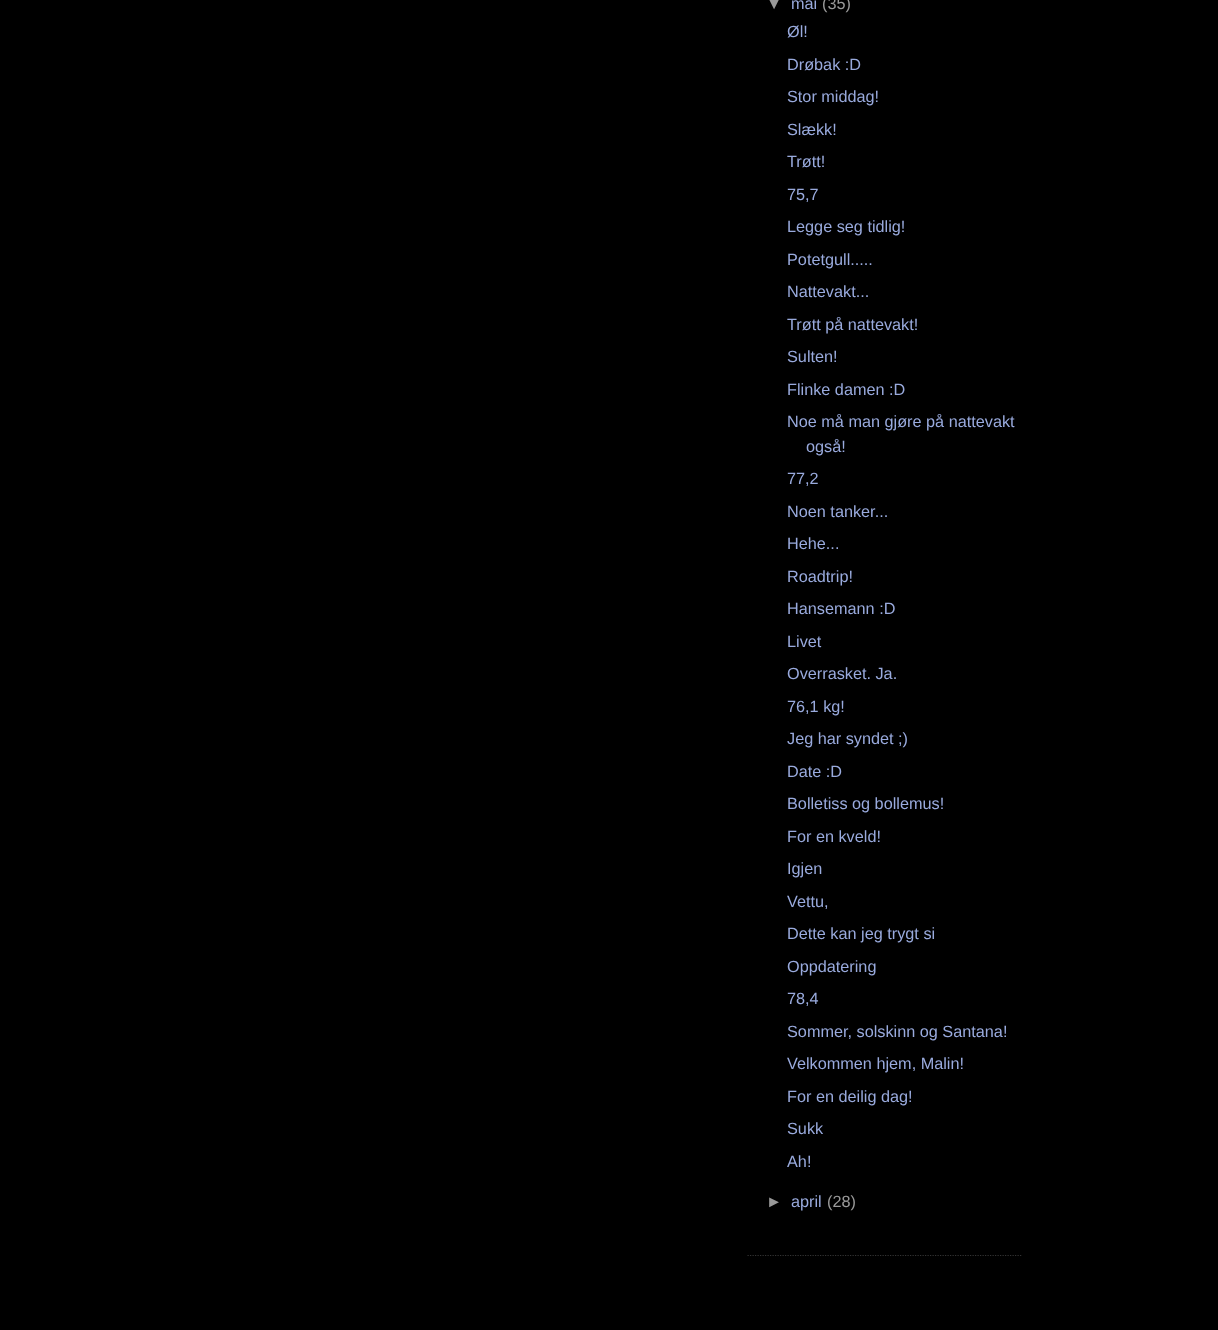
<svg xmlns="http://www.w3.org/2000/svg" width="1218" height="1330">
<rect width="100%" height="100%" fill="#000"/>
<path d="M747.5 1255.5h275" fill="none" stroke="#333" stroke-width="1.2" stroke-dasharray="1.25 1.25"/>
<text x="766" y="9" style="font-family:Liberation Sans;font-size:16.25px;fill:#999">▼</text>
<text x="791" y="9" style="font-family:Liberation Sans;font-size:16.25px;fill:#9ad">mai</text>
<text x="822" y="9" style="font-family:Liberation Sans;font-size:16.25px;fill:#999">(35)</text>
<text x="787" y="37" style="font-family:Liberation Sans;font-size:16.25px;fill:#9ad">Øl!</text>
<text x="787" y="70" style="font-family:Liberation Sans;font-size:16.25px;fill:#9ad">Drøbak :D</text>
<text x="787" y="102" style="font-family:Liberation Sans;font-size:16.25px;fill:#9ad">Stor middag!</text>
<text x="787" y="135" style="font-family:Liberation Sans;font-size:16.25px;fill:#9ad">Slækk!</text>
<text x="787" y="167" style="font-family:Liberation Sans;font-size:16.25px;fill:#9ad">Trøtt!</text>
<text x="787" y="200" style="font-family:Liberation Sans;font-size:16.25px;fill:#9ad">75,7</text>
<text x="787" y="232" style="font-family:Liberation Sans;font-size:16.25px;fill:#9ad">Legge seg tidlig!</text>
<text x="787" y="265" style="font-family:Liberation Sans;font-size:16.25px;fill:#9ad">Potetgull.....</text>
<text x="787" y="297" style="font-family:Liberation Sans;font-size:16.25px;fill:#9ad">Nattevakt...</text>
<text x="787" y="330" style="font-family:Liberation Sans;font-size:16.25px;fill:#9ad">Trøtt på nattevakt!</text>
<text x="787" y="362" style="font-family:Liberation Sans;font-size:16.25px;fill:#9ad">Sulten!</text>
<text x="787" y="395" style="font-family:Liberation Sans;font-size:16.25px;fill:#9ad">Flinke damen :D</text>
<text x="787" y="427" style="font-family:Liberation Sans;font-size:16.25px;fill:#9ad">Noe må man gjøre på nattevakt</text>
<text x="806" y="452" style="font-family:Liberation Sans;font-size:16.25px;fill:#9ad">også!</text>
<text x="787" y="484" style="font-family:Liberation Sans;font-size:16.25px;fill:#9ad">77,2</text>
<text x="787" y="517" style="font-family:Liberation Sans;font-size:16.25px;fill:#9ad">Noen tanker...</text>
<text x="787" y="549" style="font-family:Liberation Sans;font-size:16.25px;fill:#9ad">Hehe...</text>
<text x="787" y="582" style="font-family:Liberation Sans;font-size:16.25px;fill:#9ad">Roadtrip!</text>
<text x="787" y="614" style="font-family:Liberation Sans;font-size:16.25px;fill:#9ad">Hansemann :D</text>
<text x="787" y="647" style="font-family:Liberation Sans;font-size:16.25px;fill:#9ad">Livet</text>
<text x="787" y="679" style="font-family:Liberation Sans;font-size:16.25px;fill:#9ad">Overrasket. Ja.</text>
<text x="787" y="712" style="font-family:Liberation Sans;font-size:16.25px;fill:#9ad">76,1 kg!</text>
<text x="787" y="744" style="font-family:Liberation Sans;font-size:16.25px;fill:#9ad">Jeg har syndet ;)</text>
<text x="787" y="777" style="font-family:Liberation Sans;font-size:16.25px;fill:#9ad">Date :D</text>
<text x="787" y="809" style="font-family:Liberation Sans;font-size:16.25px;fill:#9ad">Bolletiss og bollemus!</text>
<text x="787" y="842" style="font-family:Liberation Sans;font-size:16.25px;fill:#9ad">For en kveld!</text>
<text x="787" y="874" style="font-family:Liberation Sans;font-size:16.25px;fill:#9ad">Igjen</text>
<text x="787" y="907" style="font-family:Liberation Sans;font-size:16.25px;fill:#9ad">Vettu,</text>
<text x="787" y="939" style="font-family:Liberation Sans;font-size:16.25px;fill:#9ad">Dette kan jeg trygt si</text>
<text x="787" y="972" style="font-family:Liberation Sans;font-size:16.25px;fill:#9ad">Oppdatering</text>
<text x="787" y="1004" style="font-family:Liberation Sans;font-size:16.25px;fill:#9ad">78,4</text>
<text x="787" y="1037" style="font-family:Liberation Sans;font-size:16.25px;fill:#9ad">Sommer, solskinn og Santana!</text>
<text x="787" y="1069" style="font-family:Liberation Sans;font-size:16.25px;fill:#9ad">Velkommen hjem, Malin!</text>
<text x="787" y="1102" style="font-family:Liberation Sans;font-size:16.25px;fill:#9ad">For en deilig dag!</text>
<text x="787" y="1134" style="font-family:Liberation Sans;font-size:16.25px;fill:#9ad">Sukk</text>
<text x="787" y="1167" style="font-family:Liberation Sans;font-size:16.25px;fill:#9ad">Ah!</text>
<text x="766" y="1207" style="font-family:Liberation Sans;font-size:16.25px;fill:#999">►</text>
<text x="791" y="1207" style="font-family:Liberation Sans;font-size:16.25px;fill:#9ad">april</text>
<text x="827" y="1207" style="font-family:Liberation Sans;font-size:16.25px;fill:#999">(28)</text>
</svg>
